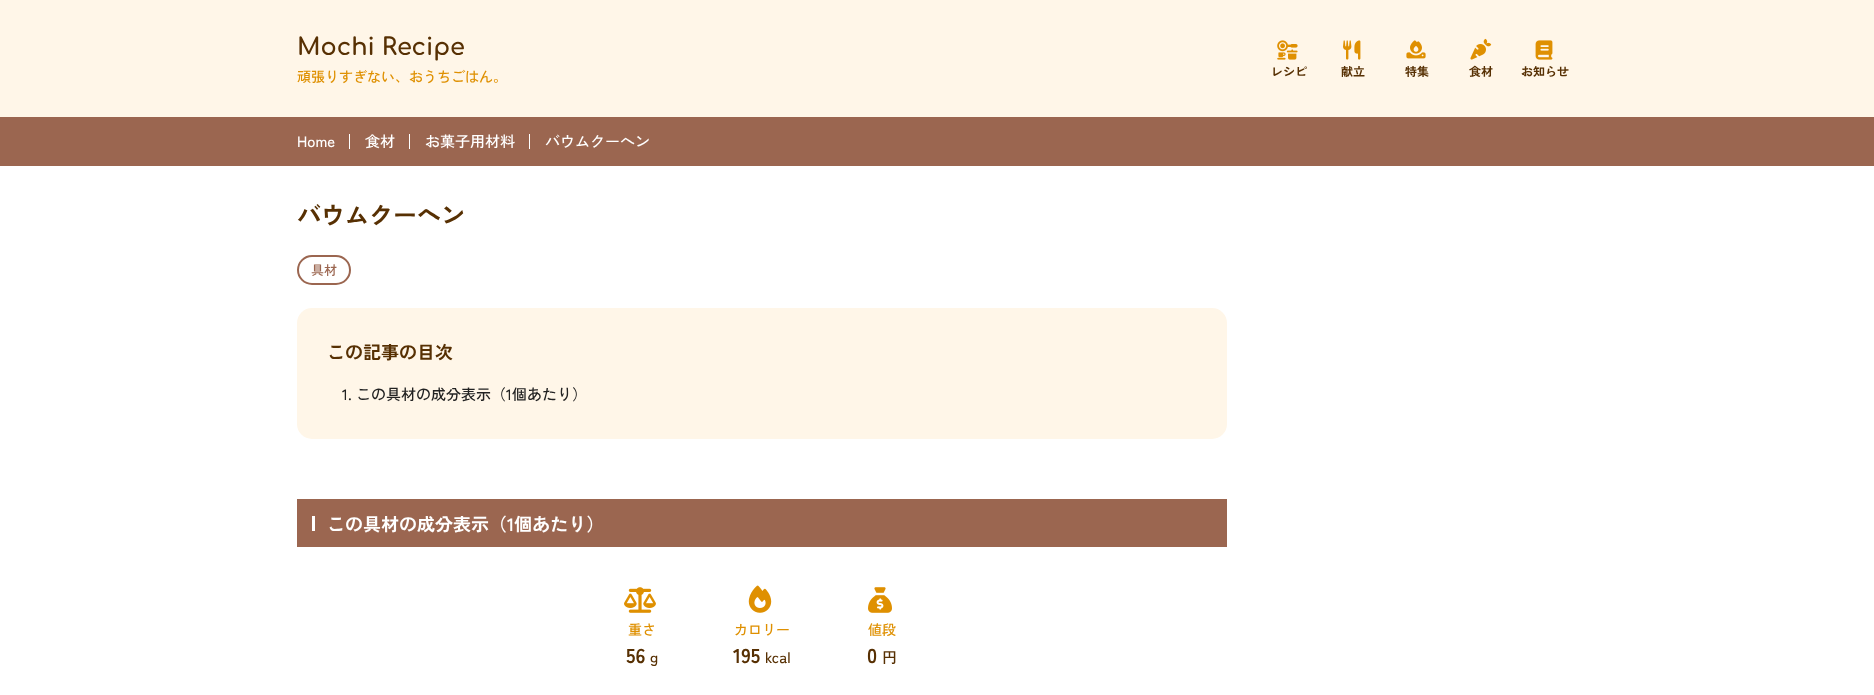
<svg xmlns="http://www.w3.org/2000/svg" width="1874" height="695">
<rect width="100%" height="100%" fill="#fff"/>
<rect width="1874" height="117" fill="#fff6e8"/>
<text x="297" y="55" style="font-family:Comfortaa;font-size:24px;font-weight:bold;fill:#573003">Mochi Recipe</text>
<text x="297" y="82" style="font-family:Zen Kaku Gothic Antique;font-size:14px;font-weight:500;fill:#df9001">頑張りすぎない、おうちごはん。</text>
<image x="1277" y="40" width="21" height="20" href="media/1.png"/>
<text x="1271" y="76" style="font-family:Zen Kaku Gothic Antique;font-size:12px;font-weight:bold;fill:#573003">レシピ</text>
<image x="1343" y="40" width="18" height="20" href="media/2.png"/>
<text x="1341" y="76" style="font-family:Zen Kaku Gothic Antique;font-size:12px;font-weight:bold;fill:#573003">献立</text>
<image x="1406" y="40" width="20" height="19" href="media/3.png"/>
<text x="1405" y="76" style="font-family:Zen Kaku Gothic Antique;font-size:12px;font-weight:bold;fill:#573003">特集</text>
<image x="1470" y="38" width="22" height="22" href="media/4.png"/>
<text x="1469" y="76" style="font-family:Zen Kaku Gothic Antique;font-size:12px;font-weight:bold;fill:#573003">食材</text>
<image x="1535" y="40" width="18" height="20" href="media/5.png"/>
<text x="1521" y="76" style="font-family:Zen Kaku Gothic Antique;font-size:12px;font-weight:bold;fill:#573003">お知らせ</text>
<rect y="117" width="1874" height="49" fill="#9b6650"/>
<text x="297" y="147" style="font-family:Zen Kaku Gothic Antique;font-size:15px;font-weight:500;fill:#fff">Home</text>
<rect x="349" y="134" width="1" height="15" fill="#fff"/>
<text x="365" y="147" style="font-family:Zen Kaku Gothic Antique;font-size:15px;font-weight:500;fill:#fff">食材</text>
<rect x="409" y="134" width="1" height="15" fill="#fff"/>
<text x="425" y="147" style="font-family:Zen Kaku Gothic Antique;font-size:15px;font-weight:500;fill:#fff">お菓子用材料</text>
<rect x="529" y="134" width="1" height="15" fill="#fff"/>
<text x="545" y="147" style="font-family:Zen Kaku Gothic Antique;font-size:15px;font-weight:500;fill:#fff">バウムクーヘン</text>
<text x="297" y="224" style="font-family:Zen Kaku Gothic Antique;font-size:24px;font-weight:bold;fill:#573003">バウムクーヘン</text>
<rect x="298" y="256" width="52" height="28" rx="14" fill="none" stroke="#9b6650" stroke-width="2"/>
<text x="311" y="275" style="font-family:Zen Kaku Gothic Antique;font-size:13px;font-weight:500;fill:#9b6650">具材</text>
<rect x="297" y="308" width="930" height="131" rx="15" fill="#fff6e8"/>
<text x="327" y="359" style="font-family:Zen Kaku Gothic Antique;font-size:18px;font-weight:bold;fill:#573003">この記事の目次</text>
<text x="342" y="400" style="font-family:Zen Kaku Gothic Antique;font-size:15px;font-weight:500;fill:#222">1. この具材の成分表示（1個あたり）</text>
<rect x="297" y="499" width="930" height="48" fill="#9b6650"/>
<rect x="312" y="516" width="3" height="15" fill="#fff"/>
<text x="327" y="531" style="font-family:Zen Kaku Gothic Antique;font-size:18px;font-weight:bold;fill:#fff">この具材の成分表示（1個あたり）</text>
<image x="624" y="587" width="32" height="26" href="media/6.png"/>
<text x="628" y="635" style="font-family:Zen Kaku Gothic Antique;font-size:14px;font-weight:500;fill:#df9001">重さ</text>
<text x="626" y="663" style="font-family:Zen Kaku Gothic Antique;font-size:20px;font-weight:bold;fill:#573003">56</text>
<text x="650" y="663" style="font-family:Zen Kaku Gothic Antique;font-size:15px;font-weight:500;fill:#573003">g</text>
<image x="748" y="585" width="24" height="28" href="media/7.png"/>
<text x="734" y="635" style="font-family:Zen Kaku Gothic Antique;font-size:14px;font-weight:500;fill:#df9001">カロリー</text>
<text x="733" y="663" style="font-family:Zen Kaku Gothic Antique;font-size:20px;font-weight:bold;fill:#573003">195</text>
<text x="765" y="663" style="font-family:Zen Kaku Gothic Antique;font-size:15px;font-weight:500;fill:#573003">kcal</text>
<image x="868" y="587" width="24" height="26" href="media/8.png"/>
<text x="868" y="635" style="font-family:Zen Kaku Gothic Antique;font-size:14px;font-weight:500;fill:#df9001">値段</text>
<text x="867" y="663" style="font-family:Zen Kaku Gothic Antique;font-size:20px;font-weight:bold;fill:#573003">0</text>
<text x="882" y="663" style="font-family:Zen Kaku Gothic Antique;font-size:15px;font-weight:500;fill:#573003">円</text>
</svg>
